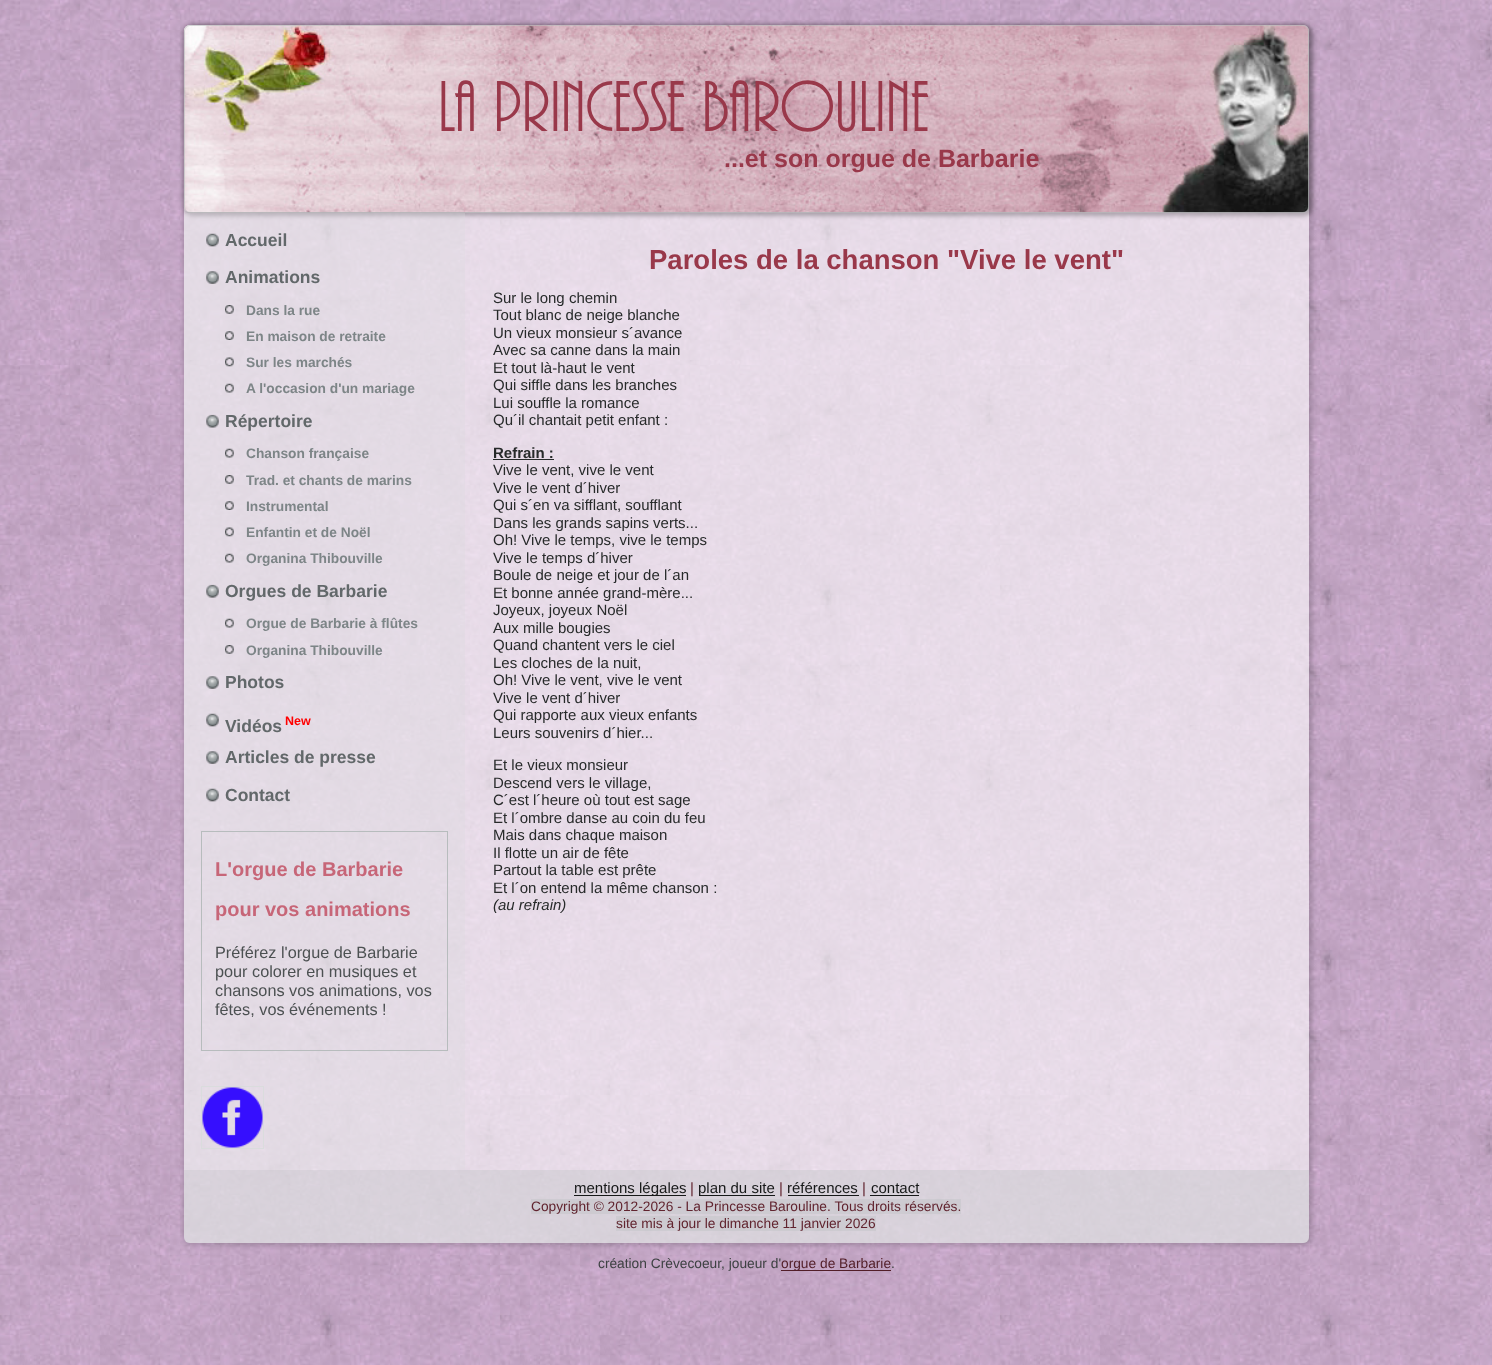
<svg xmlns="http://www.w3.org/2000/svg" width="1492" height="1365">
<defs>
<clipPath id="clip1"><path d="M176 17h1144v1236h-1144zm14 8h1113c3.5 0 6 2.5 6 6v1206c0 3.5-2.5 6-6 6h-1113c-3.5 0-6-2.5-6-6v-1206c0-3.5 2.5-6 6-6z" clip-rule="evenodd"/></clipPath>
</defs>
<rect width="100%" height="100%" fill="#fff"/>
<image x="0" y="0" width="1492" height="1365" href="media/1.png"/>
<g clip-path="url(#clip1)">
<rect x="183" y="24" width="1130" height="1222" rx="9" fill="#00000026" filter="blur(2px)"/>
</g>
<rect x="184" y="25" width="1125" height="1218" rx="6" fill="#ffffff99"/>
<rect x="183" y="24" width="1130" height="192" rx="9" fill="#00000040" filter="blur(2px)"/>
<image x="183" y="25" width="1126" height="188" href="media/2.png"/>
<rect x="184.5" y="25.5" width="1124" height="187" rx="5.5" fill="none" stroke="#b7bcbd99"/>
<text x="438" y="131" style="font-family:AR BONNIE;font-size:75px;font-weight:100;fill:#99384a">La Princesse Barouline</text>
<text x="724" y="167" style="font-family:Liberation Sans;font-size:25px;font-weight:bold;fill:#99384a">...et son orgue de Barbarie</text>
<path d="M188 213h277v957h-281v-953c0-2 2-4 4-4z" fill="#dadcdd4d"/>
<image x="206" y="233" width="13" height="14" href="media/3.png"/>
<text x="225" y="246" style="font-family:Liberation Sans;font-size:17.5px;font-weight:bold;fill:#62686a">Accueil</text>
<image x="206" y="271" width="13" height="13" href="media/4.png"/>
<text x="225" y="283" style="font-family:Liberation Sans;font-size:17.5px;font-weight:bold;fill:#62686a">Animations</text>
<image x="225" y="305" width="9" height="9" href="media/5.png"/>
<text x="246" y="315" style="font-family:Liberation Sans;font-size:13.75px;font-weight:bold;fill:#7d8587">Dans la rue</text>
<image x="225" y="331" width="9" height="9" href="media/6.png"/>
<text x="246" y="341" style="font-family:Liberation Sans;font-size:13.75px;font-weight:bold;fill:#7d8587">En maison de retraite</text>
<image x="225" y="357" width="9" height="10" href="media/7.png"/>
<text x="246" y="367" style="font-family:Liberation Sans;font-size:13.75px;font-weight:bold;fill:#7d8587">Sur les marchés</text>
<image x="225" y="383" width="9" height="10" href="media/8.png"/>
<text x="246" y="393" style="font-family:Liberation Sans;font-size:13.75px;font-weight:bold;fill:#7d8587">A l'occasion d'un mariage</text>
<image x="206" y="414" width="13" height="14" href="media/9.png"/>
<text x="225" y="427" style="font-family:Liberation Sans;font-size:17.5px;font-weight:bold;fill:#62686a">Répertoire</text>
<image x="225" y="448" width="9" height="10" href="media/10.png"/>
<text x="246" y="458" style="font-family:Liberation Sans;font-size:13.75px;font-weight:bold;fill:#7d8587">Chanson française</text>
<image x="225" y="475" width="9" height="9" href="media/11.png"/>
<text x="246" y="485" style="font-family:Liberation Sans;font-size:13.75px;font-weight:bold;fill:#7d8587">Trad. et chants de marins</text>
<image x="225" y="501" width="9" height="9" href="media/12.png"/>
<text x="246" y="511" style="font-family:Liberation Sans;font-size:13.75px;font-weight:bold;fill:#7d8587">Instrumental</text>
<image x="225" y="527" width="9" height="10" href="media/13.png"/>
<text x="246" y="537" style="font-family:Liberation Sans;font-size:13.75px;font-weight:bold;fill:#7d8587">Enfantin et de Noël</text>
<image x="225" y="553" width="9" height="10" href="media/14.png"/>
<text x="246" y="563" style="font-family:Liberation Sans;font-size:13.75px;font-weight:bold;fill:#7d8587">Organina Thibouville</text>
<image x="206" y="584" width="13" height="14" href="media/15.png"/>
<text x="225" y="597" style="font-family:Liberation Sans;font-size:17.5px;font-weight:bold;fill:#62686a">Orgues de Barbarie</text>
<image x="225" y="618" width="9" height="10" href="media/16.png"/>
<text x="246" y="628" style="font-family:Liberation Sans;font-size:13.75px;font-weight:bold;fill:#7d8587">Orgue de Barbarie à flûtes</text>
<image x="225" y="645" width="9" height="9" href="media/17.png"/>
<text x="246" y="655" style="font-family:Liberation Sans;font-size:13.75px;font-weight:bold;fill:#7d8587">Organina Thibouville</text>
<image x="206" y="676" width="13" height="13" href="media/18.png"/>
<text x="225" y="688" style="font-family:Liberation Sans;font-size:17.5px;font-weight:bold;fill:#62686a">Photos</text>
<image x="206" y="713" width="13" height="14" href="media/19.png"/>
<text x="225" y="732" style="font-family:Liberation Sans;font-size:17.5px;font-weight:bold;fill:#62686a">Vidéos</text>
<text x="285" y="725" style="font-family:Liberation Sans;font-size:12.5px;font-weight:bold;fill:#f00">New</text>
<image x="206" y="751" width="13" height="13" href="media/20.png"/>
<text x="225" y="763" style="font-family:Liberation Sans;font-size:17.5px;font-weight:bold;fill:#62686a">Articles de presse</text>
<image x="206" y="788" width="13" height="14" href="media/21.png"/>
<text x="225" y="801" style="font-family:Liberation Sans;font-size:17.5px;font-weight:bold;fill:#62686a">Contact</text>
<rect x="201.5" y="831.5" width="246" height="219" fill="none" stroke="#b7bcbd"/>
<text x="215" y="876" style="font-family:Liberation Sans;font-size:20px;font-weight:bold;fill:#c76678">L'orgue de Barbarie</text>
<text x="215" y="916" style="font-family:Liberation Sans;font-size:20px;font-weight:bold;fill:#c76678">pour vos animations</text>
<text x="215" y="958" style="font-family:Liberation Sans;font-size:16.25px;fill:#4c5152">Préférez l'orgue de Barbarie</text>
<text x="215" y="977" style="font-family:Liberation Sans;font-size:16.25px;fill:#4c5152">pour colorer en musiques et</text>
<text x="215" y="996" style="font-family:Liberation Sans;font-size:16.25px;fill:#4c5152">chansons vos animations, vos</text>
<text x="215" y="1015" style="font-family:Liberation Sans;font-size:16.25px;fill:#4c5152">fêtes, vos événements !</text>
<rect x="201.5" y="1086.5" width="62" height="62" fill="none" stroke="#dadcdd"/>
<image x="202" y="1087" width="61" height="61" href="media/22.png"/>
<text x="649" y="269" style="font-family:Liberation Sans;font-size:27.5px;font-weight:bold;fill:#99384a">Paroles de la chanson "Vive le vent"</text>
<text x="493" y="303" style="font-family:Liberation Sans;font-size:15px;fill:#272a2a">Sur le long chemin</text>
<text x="493" y="320" style="font-family:Liberation Sans;font-size:15px;fill:#272a2a">Tout blanc de neige blanche</text>
<text x="493" y="338" style="font-family:Liberation Sans;font-size:15px;fill:#272a2a">Un vieux monsieur s´avance</text>
<text x="493" y="355" style="font-family:Liberation Sans;font-size:15px;fill:#272a2a">Avec sa canne dans la main</text>
<text x="493" y="373" style="font-family:Liberation Sans;font-size:15px;fill:#272a2a">Et tout là-haut le vent</text>
<text x="493" y="390" style="font-family:Liberation Sans;font-size:15px;fill:#272a2a">Qui siffle dans les branches</text>
<text x="493" y="408" style="font-family:Liberation Sans;font-size:15px;fill:#272a2a">Lui souffle la romance</text>
<text x="493" y="425" style="font-family:Liberation Sans;font-size:15px;fill:#272a2a">Qu´il chantait petit enfant :</text>
<text x="493" y="458" style="font-family:Liberation Sans;font-size:15px;font-weight:bold;fill:#272a2a">Refrain :</text>
<rect x="493" y="459" width="61" height="1" fill="#272a2a"/>
<text x="493" y="475" style="font-family:Liberation Sans;font-size:15px;fill:#272a2a">Vive le vent, vive le vent</text>
<text x="493" y="493" style="font-family:Liberation Sans;font-size:15px;fill:#272a2a">Vive le vent d´hiver</text>
<text x="493" y="510" style="font-family:Liberation Sans;font-size:15px;fill:#272a2a">Qui s´en va sifflant, soufflant</text>
<text x="493" y="528" style="font-family:Liberation Sans;font-size:15px;fill:#272a2a">Dans les grands sapins verts...</text>
<text x="493" y="545" style="font-family:Liberation Sans;font-size:15px;fill:#272a2a">Oh! Vive le temps, vive le temps</text>
<text x="493" y="563" style="font-family:Liberation Sans;font-size:15px;fill:#272a2a">Vive le temps d´hiver</text>
<text x="493" y="580" style="font-family:Liberation Sans;font-size:15px;fill:#272a2a">Boule de neige et jour de l´an</text>
<text x="493" y="598" style="font-family:Liberation Sans;font-size:15px;fill:#272a2a">Et bonne année grand-mère...</text>
<text x="493" y="615" style="font-family:Liberation Sans;font-size:15px;fill:#272a2a">Joyeux, joyeux Noël</text>
<text x="493" y="633" style="font-family:Liberation Sans;font-size:15px;fill:#272a2a">Aux mille bougies</text>
<text x="493" y="650" style="font-family:Liberation Sans;font-size:15px;fill:#272a2a">Quand chantent vers le ciel</text>
<text x="493" y="668" style="font-family:Liberation Sans;font-size:15px;fill:#272a2a">Les cloches de la nuit,</text>
<text x="493" y="685" style="font-family:Liberation Sans;font-size:15px;fill:#272a2a">Oh! Vive le vent, vive le vent</text>
<text x="493" y="703" style="font-family:Liberation Sans;font-size:15px;fill:#272a2a">Vive le vent d´hiver</text>
<text x="493" y="720" style="font-family:Liberation Sans;font-size:15px;fill:#272a2a">Qui rapporte aux vieux enfants</text>
<text x="493" y="738" style="font-family:Liberation Sans;font-size:15px;fill:#272a2a">Leurs souvenirs d´hier...</text>
<text x="493" y="770" style="font-family:Liberation Sans;font-size:15px;fill:#272a2a">Et le vieux monsieur</text>
<text x="493" y="788" style="font-family:Liberation Sans;font-size:15px;fill:#272a2a">Descend vers le village,</text>
<text x="493" y="805" style="font-family:Liberation Sans;font-size:15px;fill:#272a2a">C´est l´heure où tout est sage</text>
<text x="493" y="823" style="font-family:Liberation Sans;font-size:15px;fill:#272a2a">Et l´ombre danse au coin du feu</text>
<text x="493" y="840" style="font-family:Liberation Sans;font-size:15px;fill:#272a2a">Mais dans chaque maison</text>
<text x="493" y="858" style="font-family:Liberation Sans;font-size:15px;fill:#272a2a">Il flotte un air de fête</text>
<text x="493" y="875" style="font-family:Liberation Sans;font-size:15px;fill:#272a2a">Partout la table est prête</text>
<text x="493" y="893" style="font-family:Liberation Sans;font-size:15px;fill:#272a2a">Et l´on entend la même chanson :</text>
<text x="493" y="910" style="font-family:Liberation Sans;font-size:15px;font-style:italic;fill:#272a2a">(au refrain)</text>
<path d="M184 1170h1125v69c0 2-2 4-4 4h-1117c-2 0-4-2-4-4z" fill="#b7bcbd4d"/>
<rect x="574" y="1195" width="112" height="1" fill="#161818"/>
<text x="574" y="1193" style="font-family:Liberation Sans;font-size:15px;fill:#161818">mentions légales</text>
<text x="690" y="1193" style="font-family:Liberation Sans;font-size:15px;fill:#61242f">|</text>
<rect x="699" y="1195" width="76" height="1" fill="#161818"/>
<text x="698" y="1193" style="font-family:Liberation Sans;font-size:15px;fill:#161818">plan du site</text>
<text x="779" y="1193" style="font-family:Liberation Sans;font-size:15px;fill:#61242f">|</text>
<text x="787" y="1193" style="font-family:Liberation Sans;font-size:15px;fill:#161818">références</text>
<rect x="788" y="1195" width="71" height="1" fill="#161818"/>
<text x="862" y="1193" style="font-family:Liberation Sans;font-size:15px;fill:#61242f">|</text>
<text x="871" y="1193" style="font-family:Liberation Sans;font-size:15px;fill:#161818">contact</text>
<rect x="870" y="1195" width="49" height="1" fill="#161818"/>
<rect x="531" y="1199" width="430" height="15" fill="#b7bcbd4d"/>
<text x="531" y="1211" style="font-family:Liberation Sans;font-size:13.75px;fill:#61242f">Copyright © 2012-2026 - La Princesse Barouline. Tous droits réservés.</text>
<rect x="616" y="1216" width="260" height="15" fill="#b7bcbd4d"/>
<text x="616" y="1228" style="font-family:Liberation Sans;font-size:13.75px;fill:#61242f">site mis à jour le dimanche 11 janvier 2026</text>
<text x="598" y="1268" style="font-family:Liberation Sans;font-size:13.75px;fill:#3d4142">création Crèvecoeur, joueur d'</text>
<rect x="781" y="1270" width="110" height="1" fill="#521e28"/>
<text x="781" y="1268" style="font-family:Liberation Sans;font-size:13.75px;fill:#521e28">orgue de Barbarie</text>
<text x="891" y="1268" style="font-family:Liberation Sans;font-size:13.75px;fill:#3d4142">.</text>
</svg>
